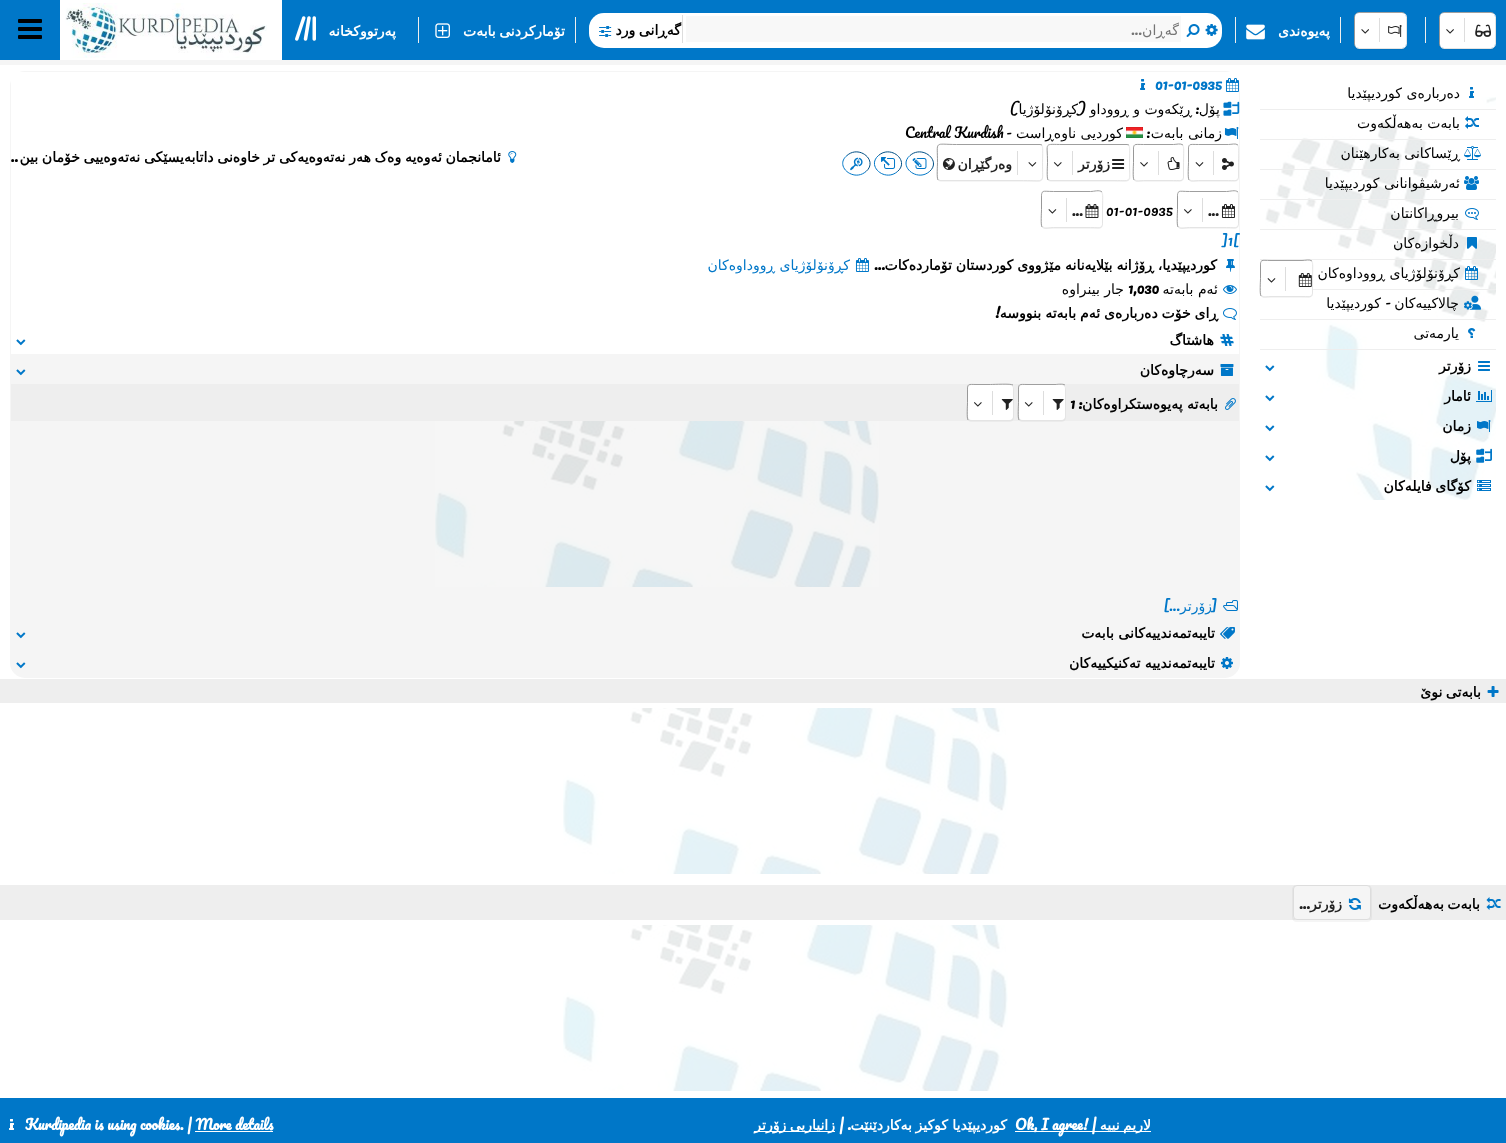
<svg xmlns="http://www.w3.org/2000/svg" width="1506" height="1143">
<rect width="100%" height="100%" fill="#fff"/>
<rect width="1506" height="60" fill="#0077c8"/>
<path d="M1494 14c1 .5 1.5 2 1.5 3v27c0 1-.5 2.5-1.5 3c-.5 1-2 1.5-3 1.5h-47c-1 0-2.5-.5-3-1.5" fill="none" stroke="#eee"/>
<path d="M1441 47c-1-.5-1.5-2-1.5-3v-27c0-1 .5-2.5 1.5-3c.5-1 2-1.5 3-1.5h47c1 0 2.5 .5 3 1.5" fill="none" stroke="#9f9f9f"/>
<path d="M1444 13c-3 0-5 2-5 5v27c0 3 2 5 5 5h47c3 0 5-2 5-5v-27c0-3-2-5-5-5c2 0 4 2 4 4v27c0 2-2 4-4 4h-47c-2 0-4-2-4-4v-27c0-2 2-4 4-4z" fill="#0000000a"/>
<rect x="1440" y="13" width="55" height="35" rx="4" fill="#fff"/>
<image x="1475" y="24" width="16" height="13" href="media/1.png"/>
<rect x="1464" y="18" width="1" height="24" fill="#ddd"/>
<image x="1446" y="29" width="8" height="5" href="media/2.png"/>
<rect x="1425" y="17" width="1" height="26" fill="#eee"/>
<path d="M1405 14c1 .5 1.5 2 1.5 3v27c0 1-.5 2.5-1.5 3c-.5 1-2 1.5-3 1.5h-43c-1 0-2.5-.5-3-1.5" fill="none" stroke="#eee"/>
<path d="M1356 47c-1-.5-1.5-2-1.5-3v-27c0-1 .5-2.5 1.5-3c.5-1 2-1.5 3-1.5h43c1 0 2.5 .5 3 1.5" fill="none" stroke="#9f9f9f"/>
<path d="M1359 13c-3 0-5 2-5 5v27c0 3 2 5 5 5h43c3 0 5-2 5-5v-27c0-3-2-5-5-5c2 0 4 2 4 4v27c0 2-2 4-4 4h-43c-2 0-4-2-4-4v-27c0-2 2-4 4-4z" fill="#0000000a"/>
<rect x="1355" y="13" width="51" height="35" rx="4" fill="#fff"/>
<image x="1388" y="25" width="14" height="12" href="media/3.png"/>
<rect x="1379" y="18" width="1" height="24" fill="#ddd"/>
<image x="1361" y="29" width="8" height="5" href="media/4.png"/>
<rect x="1340" y="17" width="1" height="26" fill="#eee"/>
<text x="1330" y="36" style="font-family:DejaVu Sans;font-size:14px;font-weight:bold;direction:rtl;fill:#fff">پەیوەندی</text>
<rect x="1235" y="17" width="1" height="26" fill="#eee"/>
<image x="1246" y="24" width="19" height="16" href="media/5.png"/>
<rect x="589" y="13" width="633" height="35" rx="15" fill="#fff"/>
<image x="1205" y="24" width="13" height="12" href="media/6.png"/>
<image x="1186" y="24" width="14" height="13" href="media/7.png"/>
<rect x="686" y="16" width="495" height="26" fill="#f8f8f8"/>
<text x="1179" y="35" style="font-family:DejaVu Sans;font-size:14px;direction:rtl;fill:#757575">گەڕان</text>
<text x="1142" y="35" style="font-family:Pacifico;font-size:14px;direction:rtl;fill:#757575">...</text>
<rect x="682" y="15" width="1" height="28" fill="#ddd"/>
<text x="681" y="35" word-spacing="-1" style="font-family:DejaVu Sans;font-size:14px;font-weight:bold;direction:rtl;fill:#000">گەڕانی ورد</text>
<image x="599" y="26" width="13" height="11" href="media/8.png"/>
<rect x="575" y="17" width="1" height="26" fill="#eee"/>
<text x="565" y="36" word-spacing="-1" style="font-family:DejaVu Sans;font-size:14px;font-weight:bold;direction:rtl;fill:#fff">تۆمارکردنی بابەت</text>
<image x="435" y="23" width="15" height="15" href="media/9.png"/>
<rect x="418" y="17" width="1" height="26" fill="#eee"/>
<text x="396" y="36" style="font-family:DejaVu Sans;font-size:14px;font-weight:bold;direction:rtl;fill:#fff">پەرتووکخانە</text>
<image x="295" y="16" width="21" height="25" href="media/10.png"/>
<rect x="60" width="222" height="60" fill="#fff"/>
<image x="65" y="3" width="202" height="55" href="media/11.png"/>
<image x="18" y="19" width="24" height="20" href="media/12.png"/>
<rect y="60" width="1506" height="5" fill="#f5f5f5"/>
<image x="1265" y="97" width="231" height="403" href="media/13.png"/>
<rect x="1260" y="109" width="236" height="1" fill="#eee"/>
<image x="1469" y="87" width="5" height="11" href="media/14.png"/>
<text x="1460" y="98" style="font-family:DejaVu Sans;font-size:14px;direction:rtl;fill:#000">دەربارەی کوردیپێدیا</text>
<rect x="1260" y="139" width="236" height="1" fill="#eee"/>
<image x="1465" y="116" width="14" height="13" href="media/15.png"/>
<text x="1460" y="128" style="font-family:DejaVu Sans;font-size:14px;direction:rtl;fill:#000">بابەت بەهەڵکەوت</text>
<rect x="1260" y="169" width="236" height="1" fill="#eee"/>
<image x="1464" y="146" width="17" height="14" href="media/16.png"/>
<text x="1460" y="158" style="font-family:DejaVu Sans;font-size:14px;direction:rtl;fill:#000">ڕێساکانی بەکارهێنان</text>
<rect x="1260" y="199" width="236" height="1" fill="#eee"/>
<image x="1464" y="176" width="15" height="14" href="media/17.png"/>
<text x="1460" y="188" style="font-family:DejaVu Sans;font-size:14px;direction:rtl;fill:#000">ئەرشیڤوانانی کوردیپێدیا</text>
<rect x="1260" y="229" width="236" height="1" fill="#eee"/>
<image x="1465" y="208" width="14" height="12" href="media/18.png"/>
<text x="1459" y="218" style="font-family:DejaVu Sans;font-size:14px;direction:rtl;fill:#000">بیروڕاکانتان</text>
<rect x="1260" y="259" width="236" height="1" fill="#eee"/>
<image x="1467" y="237" width="10" height="12" href="media/19.png"/>
<text x="1459" y="248" style="font-family:DejaVu Sans;font-size:14px;direction:rtl;fill:#000">دڵخوازەکان</text>
<rect x="1260" y="289" width="236" height="1" fill="#eee"/>
<image x="1465" y="266" width="13" height="14" href="media/20.png"/>
<text x="1460" y="278" style="font-family:DejaVu Sans;font-size:14px;direction:rtl;fill:#000">کڕۆنۆلۆژیای ڕووداوەکان</text>
<path d="M1312 261c1.5 2 .5 14.5 .5 17.5v10.5c0 9.5 0 7.5-10.5 7.5h-31c-3.5 0-7.5 1.5-10-.5" fill="none" stroke="#eee"/>
<path d="M1261 296c-1.5-2-.5-14.5-.5-17.5v-10.5c0-9.5 0-7.5 10.5-7.5h31c3.5 0 7.5-1.5 10 .5" fill="none" stroke="#9f9f9f"/>
<path d="M1265 261c-3 0-5 2-5 5v27c0 3 2 5 5 5h43c3 0 5-2 5-5v-27c0-3-2-5-5-5c2 0 4 2 4 4v27c0 2-2 4-4 4h-43c-2 0-4-2-4-4v-27c0-2 2-4 4-4z" fill="#0000000a"/>
<rect x="1261" y="261" width="51" height="35" rx="4" fill="#fff"/>
<image x="1298" y="273" width="14" height="14" href="media/21.png"/>
<rect x="1285" y="267" width="1" height="24" fill="#ddd"/>
<image x="1267" y="278" width="9" height="5" href="media/22.png"/>
<rect x="1260" y="319" width="236" height="1" fill="#eee"/>
<image x="1464" y="295" width="17" height="15" href="media/23.png"/>
<text x="1459" y="308" style="font-family:DejaVu Sans;font-size:14px;direction:rtl;fill:#000">چالاکییەکان</text>
<text x="1391" y="308" style="font-family:Pacifico;font-size:14px;direction:rtl;fill:#000">-</text>
<text x="1381" y="308" style="font-family:DejaVu Sans;font-size:14px;direction:rtl;fill:#000">کوردیپێدیا</text>
<rect x="1260" y="349" width="236" height="1" fill="#eee"/>
<image x="1468" y="328" width="8" height="10" href="media/24.png"/>
<text x="1459" y="338" style="font-family:DejaVu Sans;font-size:14px;direction:rtl;fill:#000">یارمەتی</text>
<image x="1478" y="361" width="12" height="10" href="media/25.png"/>
<text x="1471" y="371" style="font-family:DejaVu Sans;font-size:14px;font-weight:bold;direction:rtl;fill:#000">زۆرتر</text>
<image x="1265" y="365" width="10" height="7" href="media/26.png"/>
<image x="1476" y="390" width="16" height="12" href="media/27.png"/>
<text x="1471" y="401" style="font-family:DejaVu Sans;font-size:14px;font-weight:bold;direction:rtl;fill:#000">ئامار</text>
<image x="1265" y="395" width="10" height="7" href="media/26.png"/>
<image x="1477" y="420" width="14" height="12" href="media/28.png"/>
<text x="1471" y="431" style="font-family:DejaVu Sans;font-size:14px;font-weight:bold;direction:rtl;fill:#000">زمان</text>
<image x="1265" y="425" width="10" height="7" href="media/26.png"/>
<image x="1476" y="448" width="16" height="15" href="media/29.png"/>
<text x="1471" y="461" style="font-family:DejaVu Sans;font-size:14px;font-weight:bold;direction:rtl;fill:#000">پۆل</text>
<image x="1265" y="455" width="10" height="7" href="media/26.png"/>
<image x="1477" y="480" width="14" height="11" href="media/30.png"/>
<text x="1471" y="491" word-spacing="-1" style="font-family:DejaVu Sans;font-size:14px;font-weight:bold;direction:rtl;fill:#000">کۆگای فایلەکان</text>
<image x="1265" y="485" width="10" height="7" href="media/26.png"/>
<rect x="10" y="71" width="1230" height="607" rx="15" fill="#f5f5f5"/>
<rect x="11" y="72" width="1228" height="282" fill="#fff"/>
<image x="1225" y="78" width="14" height="14" href="media/31.png"/>
<text x="1155" y="90" style="font-family:Pacifico;font-size:14px;font-weight:bold;fill:#0077c8">01-01-0935</text>
<image x="1140" y="79" width="6" height="11" href="media/32.png"/>
<image x="1223" y="101" width="17" height="15" href="media/33.png"/>
<text x="1220" y="114" style="font-family:DejaVu Sans;font-size:14px;direction:rtl;fill:#000">پۆل</text>
<text x="1199" y="114" style="font-family:Pacifico;font-size:14px;direction:rtl;fill:#000">:</text>
<text x="1192" y="114" style="font-family:DejaVu Sans;font-size:14px;direction:rtl;fill:#000">ڕێکەوت و ڕووداو</text>
<text x="1086" y="114" style="font-family:Pacifico;font-size:14px;direction:rtl;fill:#000">(</text>
<text x="1078" y="114" style="font-family:DejaVu Sans;font-size:14px;direction:rtl;fill:#000">کڕۆنۆلۆژیا</text>
<text x="1018" y="114" style="font-family:Pacifico;font-size:14px;direction:rtl;fill:#000">)</text>
<image x="1224" y="127" width="15" height="12" href="media/34.png"/>
<text x="1222" y="138" style="font-family:DejaVu Sans;font-size:14px;direction:rtl;fill:#000">زمانی بابەت</text>
<text x="1150" y="138" style="font-family:Pacifico;font-size:14px;direction:rtl;fill:#000">:</text>
<image x="1126" y="127" width="17" height="11" href="media/35.png"/>
<text x="1123" y="138" style="font-family:DejaVu Sans;font-size:14px;direction:rtl;fill:#000">کوردیی ناوەڕاست</text>
<text x="1012" y="138" style="font-family:Pacifico;font-size:14px;direction:rtl;fill:#000">-</text>
<text x="905" y="138" style="font-family:Pacifico;font-size:14px;fill:#000">Central Kurdish</text>
<image x="508" y="151" width="9" height="12" href="media/36.png"/>
<text x="501" y="162" word-spacing="-0.75" style="font-family:DejaVu Sans;font-size:14px;font-weight:bold;direction:rtl;fill:#000">ئامانجمان ئەوەیە وەک هەر نەتەوەیەکی تر خاوەنی داتابەیسێکی نەتەوەییی خۆمان بین</text>
<text x="18" y="162" style="font-family:Pacifico;font-size:14px;font-weight:bold;direction:rtl;fill:#000">..</text>
<path d="M1238 145c1.5 2 .5 14.5 .5 17.5v10.5c0 9 0 7.5-10 7.5h-30c-3 0-7 1.5-9.5-.5" fill="none" stroke="#eee"/>
<path d="M1189 180c-1.5-2-.5-14.5-.5-17.5v-10.5c0-9 0-7.5 10-7.5h30c3 0 7-1.5 9.5 .5" fill="none" stroke="#9f9f9f"/>
<path d="M1193 145c-3 0-5 2-5 5v27c0 3 2 5 5 5h41c3 0 5-2 5-5v-27c0-3-2-5-5-5c2 0 4 2 4 4v27c0 2-2 4-4 4h-41c-2 0-4-2-4-4v-27c0-2 2-4 4-4z" fill="#0000000a"/>
<rect x="1189" y="145" width="49" height="35" rx="4" fill="#fff"/>
<image x="1222" y="158" width="12" height="12" href="media/37.png"/>
<rect x="1213" y="151" width="1" height="24" fill="#ddd"/>
<image x="1195" y="162" width="9" height="5" href="media/22.png"/>
<path d="M1183 145c1.5 2 .5 14.5 .5 17.5v10.5c0 9 0 7.5-10 7.5h-30c-3 0-7 1.5-9.5-.5" fill="none" stroke="#eee"/>
<path d="M1134 180c-1.5-2-.5-14.5-.5-17.5v-10.5c0-9 0-7.5 10-7.5h30c3 0 7-1.5 9.5 .5" fill="none" stroke="#9f9f9f"/>
<path d="M1138 145c-3 0-5 2-5 5v27c0 3 2 5 5 5h41c3 0 5-2 5-5v-27c0-3-2-5-5-5c2 0 4 2 4 4v27c0 2-2 4-4 4h-41c-2 0-4-2-4-4v-27c0-2 2-4 4-4z" fill="#0000000a"/>
<rect x="1134" y="145" width="49" height="35" rx="4" fill="#fff"/>
<image x="1167" y="157" width="13" height="13" href="media/38.png"/>
<rect x="1158" y="151" width="1" height="24" fill="#ddd"/>
<image x="1140" y="162" width="8" height="5" href="media/39.png"/>
<path d="M1129 145c1.5 2 .5 14.5 .5 17.5c0 21 4.5 18-15.5 18h-64l-2-.5" fill="none" stroke="#eee"/>
<path d="M1048 180c-1.5-2-.5-14.5-.5-17.5c0-21-4.5-18 15.5-18h64l2 .5" fill="none" stroke="#9f9f9f"/>
<path d="M1052 145c-3 0-5 2-5 5v27c0 3 2 5 5 5h73c3 0 5-2 5-5v-27c0-3-2-5-5-5c2 0 4 2 4 4v27c0 2-2 4-4 4h-73c-2 0-4-2-4-4v-27c0-2 2-4 4-4z" fill="#0000000a"/>
<rect x="1048" y="145" width="81" height="35" rx="4" fill="#fff"/>
<image x="1112" y="159" width="13" height="10" href="media/40.png"/>
<text x="1110" y="169" style="font-family:DejaVu Sans;font-size:14px;font-weight:bold;direction:rtl;fill:#222">زۆرتر</text>
<rect x="1072" y="151" width="1" height="24" fill="#ddd"/>
<image x="1053" y="162" width="9" height="5" href="media/41.png"/>
<path d="M1042 145c1.5 2 .5 14.5 .5 17.5c0 22.5 4 18-19 18h-83.5l-2-.5" fill="none" stroke="#eee"/>
<path d="M938 180c-1.5-2-.5-14.5-.5-17.5c0-22.5-4-18 19-18h83.5l2 .5" fill="none" stroke="#9f9f9f"/>
<path d="M942 145c-3 0-5 2-5 5v27c0 3 2 5 5 5h96c3 0 5-2 5-5v-27c0-3-2-5-5-5c2 0 4 2 4 4v27c0 2-2 4-4 4h-96c-2 0-4-2-4-4v-27c0-2 2-4 4-4z" fill="#0000000a"/>
<rect x="938" y="145" width="104" height="35" rx="4" fill="#fff"/>
<image x="1028" y="162" width="9" height="5" href="media/42.png"/>
<rect x="1017" y="151" width="1" height="24" fill="#ddd"/>
<text x="1012" y="169" style="font-family:DejaVu Sans;font-size:14px;font-weight:bold;direction:rtl;fill:#222">وەرگێڕان</text>
<image x="942" y="158" width="13" height="12" href="media/43.png"/>
<path d="M910 155.5c-12.5 10.5 7 27 19.5 16" fill="none" stroke="#0077c8"/>
<path d="M929.5 171.5c12.5-10.5-7-27-19.5-16" fill="none" stroke="#004f85"/>
<image x="912" y="158" width="15" height="11" href="media/44.png"/>
<path d="M878.5 155.5c-12.5 10.5 6.5 27 19 16" fill="none" stroke="#0077c8"/>
<path d="M897.5 171.5c12.5-10.5-6.5-27-19-16" fill="none" stroke="#004f85"/>
<image x="881" y="157" width="15" height="12" href="media/45.png"/>
<path d="M847 155.5c-13 10.5 6.5 27 19 16" fill="none" stroke="#0077c8"/>
<path d="M866 171.5c12.5-10.5-6.5-27-19-16" fill="none" stroke="#004f85"/>
<image x="850" y="157" width="13" height="14" href="media/46.png"/>
<path d="M1238 192c1.5 2 .5 14.5 .5 17.5v10.5c0 10-.5 7.5-12 7.5h-37c-4 0-8.5 2-11.5-.5" fill="none" stroke="#eee"/>
<path d="M1178 227c-1.5-2-.5-14.5-.5-17.5v-10.5c0-10 .5-7.5 12-7.5h37c4 0 8.5-2 11.5 .5" fill="none" stroke="#9f9f9f"/>
<path d="M1182 192c-3 0-5 2-5 5v27c0 3 2 5 5 5h52c3 0 5-2 5-5v-27c0-3-2-5-5-5c2 0 4 2 4 4v27c0 2-2 4-4 4h-52c-2 0-4-2-4-4v-27c0-2 2-4 4-4z" fill="#0000000a"/>
<rect x="1178" y="192" width="60" height="35" rx="4" fill="#fff"/>
<image x="1221" y="204" width="14" height="14" href="media/47.png"/>
<rect x="1202" y="198" width="1" height="24" fill="#ddd"/>
<image x="1184" y="209" width="8" height="5" href="media/48.png"/>
<text x="1208" y="216" style="font-family:Pacifico;font-size:14px;font-weight:bold;fill:#222">...</text>
<text x="1106" y="216" style="font-family:Pacifico;font-size:14px;fill:#000">01-01-0935</text>
<path d="M1102 192c1.5 2 .5 14.5 .5 17.5v10.5c0 10-.5 7.5-12 7.5h-37c-4 0-8.5 2-11.5-.5" fill="none" stroke="#eee"/>
<path d="M1042 227c-1.5-2-.5-14.5-.5-17.5v-10.5c0-10 .5-7.5 12-7.5h37c4 0 8.5-2 11.5 .5" fill="none" stroke="#9f9f9f"/>
<path d="M1046 192c-3 0-5 2-5 5v27c0 3 2 5 5 5h52c3 0 5-2 5-5v-27c0-3-2-5-5-5c2 0 4 2 4 4v27c0 2-2 4-4 4h-52c-2 0-4-2-4-4v-27c0-2 2-4 4-4z" fill="#0000000a"/>
<rect x="1042" y="192" width="60" height="35" rx="4" fill="#fff"/>
<image x="1085" y="204" width="14" height="14" href="media/49.png"/>
<rect x="1066" y="198" width="1" height="24" fill="#ddd"/>
<image x="1048" y="209" width="9" height="5" href="media/50.png"/>
<text x="1072" y="216" style="font-family:Pacifico;font-size:14px;font-weight:bold;fill:#222">...</text>
<text x="1222" y="246" style="font-family:Pacifico;font-size:14px;fill:#0077c8">]1[</text>
<image x="1226" y="259" width="9" height="13" href="media/51.png"/>
<text x="1217" y="270" word-spacing="-0.5" style="font-family:DejaVu Sans;font-size:14px;font-weight:bold;direction:rtl;fill:#000">کوردیپێدیا، ڕۆژانە بێلایەنانە مێژووی کوردستان تۆماردەکات</text>
<text x="885" y="270" style="font-family:Pacifico;font-size:14px;font-weight:bold;direction:rtl;fill:#000">...</text>
<image x="855" y="258" width="14" height="14" href="media/31.png"/>
<text x="850" y="270" style="font-family:DejaVu Sans;font-size:14px;direction:rtl;fill:#0077c8">کڕۆنۆلۆژیای ڕووداوەکان</text>
<image x="1223" y="285" width="14" height="9" href="media/52.png"/>
<text x="1218" y="294" style="font-family:DejaVu Sans;font-size:14px;direction:rtl;fill:#000">ئەم بابەتە</text>
<text x="1128" y="294" style="font-family:Pacifico;font-size:14px;font-weight:bold;fill:#000">1,030</text>
<text x="1124" y="294" style="font-family:DejaVu Sans;font-size:14px;direction:rtl;fill:#000">جار بینراوە</text>
<image x="1223" y="308" width="14" height="12" href="media/53.png"/>
<text x="1218" y="318" word-spacing="-0.5" style="font-family:DejaVu Sans;font-size:14px;font-weight:bold;direction:rtl;fill:#000">ڕای خۆت دەربارەی ئەم بابەتە بنووسە</text>
<text x="1000" y="318" style="font-family:Pacifico;font-size:14px;font-weight:bold;direction:rtl;fill:#000">!</text>
<image x="1220" y="334" width="14" height="12" href="media/54.png"/>
<text x="1214" y="345" style="font-family:DejaVu Sans;font-size:14px;font-weight:bold;direction:rtl;fill:#000">هاشتاگ</text>
<image x="16" y="339" width="10" height="7" href="media/55.png"/>
<image x="1220" y="364" width="14" height="12" href="media/56.png"/>
<text x="1214" y="375" style="font-family:DejaVu Sans;font-size:14px;font-weight:bold;direction:rtl;fill:#000">سەرچاوەکان</text>
<image x="16" y="369" width="10" height="7" href="media/57.png"/>
<rect x="11" y="384" width="1228" height="37" fill="#eee"/>
<image x="1225" y="398" width="11" height="12" href="media/58.png"/>
<text x="1218" y="409" style="font-family:DejaVu Sans;font-size:14px;font-weight:bold;direction:rtl;fill:#000">بابەتە پەیوەستکراوەکان</text>
<text x="1082" y="409" style="font-family:Pacifico;font-size:14px;font-weight:bold;direction:rtl;fill:#000">:</text>
<text x="1070" y="409" style="font-family:Pacifico;font-size:14px;font-weight:bold;fill:#000">1</text>
<path d="M1019 420c-1.5-2-.5-14.5-.5-17.5v-10.5c0-9 0-7.5 9.5-7.5h28c0 0 7-1 9 .5" fill="none" stroke="#9f9f9f"/>
<path d="M1023 385c-3 0-5 2-5 5v27c0 3 2 5 5 5h38c3 0 5-2 5-5v-27c0-3-2-5-5-5c2 0 4 2 4 4v27c0 2-2 4-4 4h-38c-2 0-4-2-4-4v-27c0-2 2-4 4-4z" fill="#0000000a"/>
<rect x="1019" y="385" width="46" height="35" rx="4" fill="#fff"/>
<image x="1052" y="399" width="12" height="11" href="media/59.png"/>
<rect x="1043" y="391" width="1" height="24" fill="#ddd"/>
<image x="1024" y="402" width="9" height="5" href="media/60.png"/>
<path d="M968 420c-1.5-2-.5-14.5-.5-17.5v-10.5c0-9 0-7.5 9.5-7.5h13.5c3.5 0 20.5-1 22.5 .5" fill="none" stroke="#9f9f9f"/>
<path d="M972 385c-3 0-5 2-5 5v27c0 3 2 5 5 5h37c3 0 5-2 5-5v-27c0-3-2-5-5-5c2 0 4 2 4 4v27c0 2-2 4-4 4h-37c-2 0-4-2-4-4v-27c0-2 2-4 4-4z" fill="#0000000a"/>
<rect x="968" y="385" width="45" height="35" rx="4" fill="#fff"/>
<image x="1001" y="399" width="12" height="11" href="media/61.png"/>
<rect x="992" y="391" width="1" height="24" fill="#ddd"/>
<image x="974" y="402" width="8" height="5" href="media/62.png"/>
<image x="435" y="421" width="444" height="166" href="media/63.png"/>
<image x="1223" y="600" width="15" height="11" href="media/64.png"/>
<text x="1217" y="611" style="font-family:Pacifico;font-size:14px;direction:rtl;fill:#0077c8">[</text>
<text x="1180" y="611" style="font-family:Pacifico;font-size:14px;direction:rtl;fill:#0077c8">...]</text>
<text x="1212" y="611" style="font-family:DejaVu Sans;font-size:14px;direction:rtl;fill:#0077c8">زۆرتر</text>
<image x="1220" y="627" width="15" height="12" href="media/65.png"/>
<text x="1215" y="638" style="font-family:DejaVu Sans;font-size:14px;font-weight:bold;direction:rtl;fill:#000">تایبەتمەندییەکانی بابەت</text>
<image x="16" y="632" width="10" height="7" href="media/57.png"/>
<image x="1220" y="657" width="13" height="12" href="media/66.png"/>
<text x="1215" y="668" style="font-family:DejaVu Sans;font-size:14px;font-weight:bold;direction:rtl;fill:#000">تایبەتمەندییە تەکنیکییەکان</text>
<image x="16" y="662" width="10" height="7" href="media/57.png"/>
<rect y="679" width="1506" height="24" fill="#eee"/>
<image x="1487" y="686" width="12" height="11" href="media/67.png"/>
<text x="1481" y="697" word-spacing="-1" style="font-family:DejaVu Sans;font-size:14px;font-weight:bold;direction:rtl;fill:#000">بابەتی نوێ</text>
<image x="563" y="708" width="445" height="166" href="media/68.png"/>
<rect y="885" width="1506" height="35" fill="#eee"/>
<image x="1486" y="897" width="15" height="13" href="media/69.png"/>
<text x="1480" y="909" word-spacing="-1" style="font-family:DejaVu Sans;font-size:14px;font-weight:bold;direction:rtl;fill:#000">بابەت بەهەڵکەوت</text>
<path d="M1297 885c-3 0-5 2-5 5v27c0 3 2 5 5 5h70c3 0 5-2 5-5v-27c0-3-2-5-5-5c2 0 4 2 4 4v27c0 2-2 4-4 4h-70c-2 0-4-2-4-4v-27c0-2 2-4 4-4z" fill="#0000000a"/>
<rect x="1293.5" y="885.5" width="77" height="34" rx="3.5" fill="#f5f5f5" stroke="#ddd"/>
<image x="1348" y="898" width="13" height="12" href="media/70.png"/>
<text x="1310" y="909" style="font-family:Pacifico;font-size:14px;font-weight:bold;direction:rtl;fill:#222">...</text>
<text x="1342" y="909" style="font-family:DejaVu Sans;font-size:14px;font-weight:bold;direction:rtl;fill:#222">زۆرتر</text>
<image x="563" y="925" width="445" height="166" href="media/68.png"/>
<rect y="1098" width="1506" height="45" fill="#0077c8"/>
<rect x="1015" y="1131" width="136" height="1" fill="#fff"/>
<text x="1151" y="1130" word-spacing="-1" style="font-family:DejaVu Sans;font-size:14px;font-weight:bold;direction:rtl;fill:#fff">لاریم نییە</text>
<text x="1015" y="1130" style="font-family:Pacifico;font-size:14px;font-weight:bold;fill:#fff">Ok, I agree! |</text>
<text x="1007" y="1130" style="font-family:DejaVu Sans;font-size:14px;font-weight:bold;direction:rtl;fill:#fff">کوردیپێدیا</text>
<text x="948" y="1130" style="font-family:DejaVu Sans;font-size:14px;font-weight:bold;direction:rtl;fill:#fff">کوکیز</text>
<text x="912" y="1130" style="font-family:DejaVu Sans;font-size:14px;font-weight:bold;direction:rtl;fill:#fff">بەکاردێنێت</text>
<text x="851" y="1130" style="font-family:Pacifico;font-size:14px;font-weight:bold;direction:rtl;fill:#fff">. |</text>
<rect x="754" y="1131" width="81" height="1" fill="#fff"/>
<text x="835" y="1130" word-spacing="-1" style="font-family:DejaVu Sans;font-size:14px;font-weight:bold;direction:rtl;fill:#fff">زانیاریی زۆرتر</text>
<text x="25" y="1130" style="font-family:Pacifico;font-size:14px;font-weight:bold;fill:#fff">Kurdipedia is using cookies. | More details</text>
<image x="9" y="1119" width="5" height="11" href="media/71.png"/>
<rect x="195" y="1131" width="78" height="1" fill="#fff"/>
</svg>
